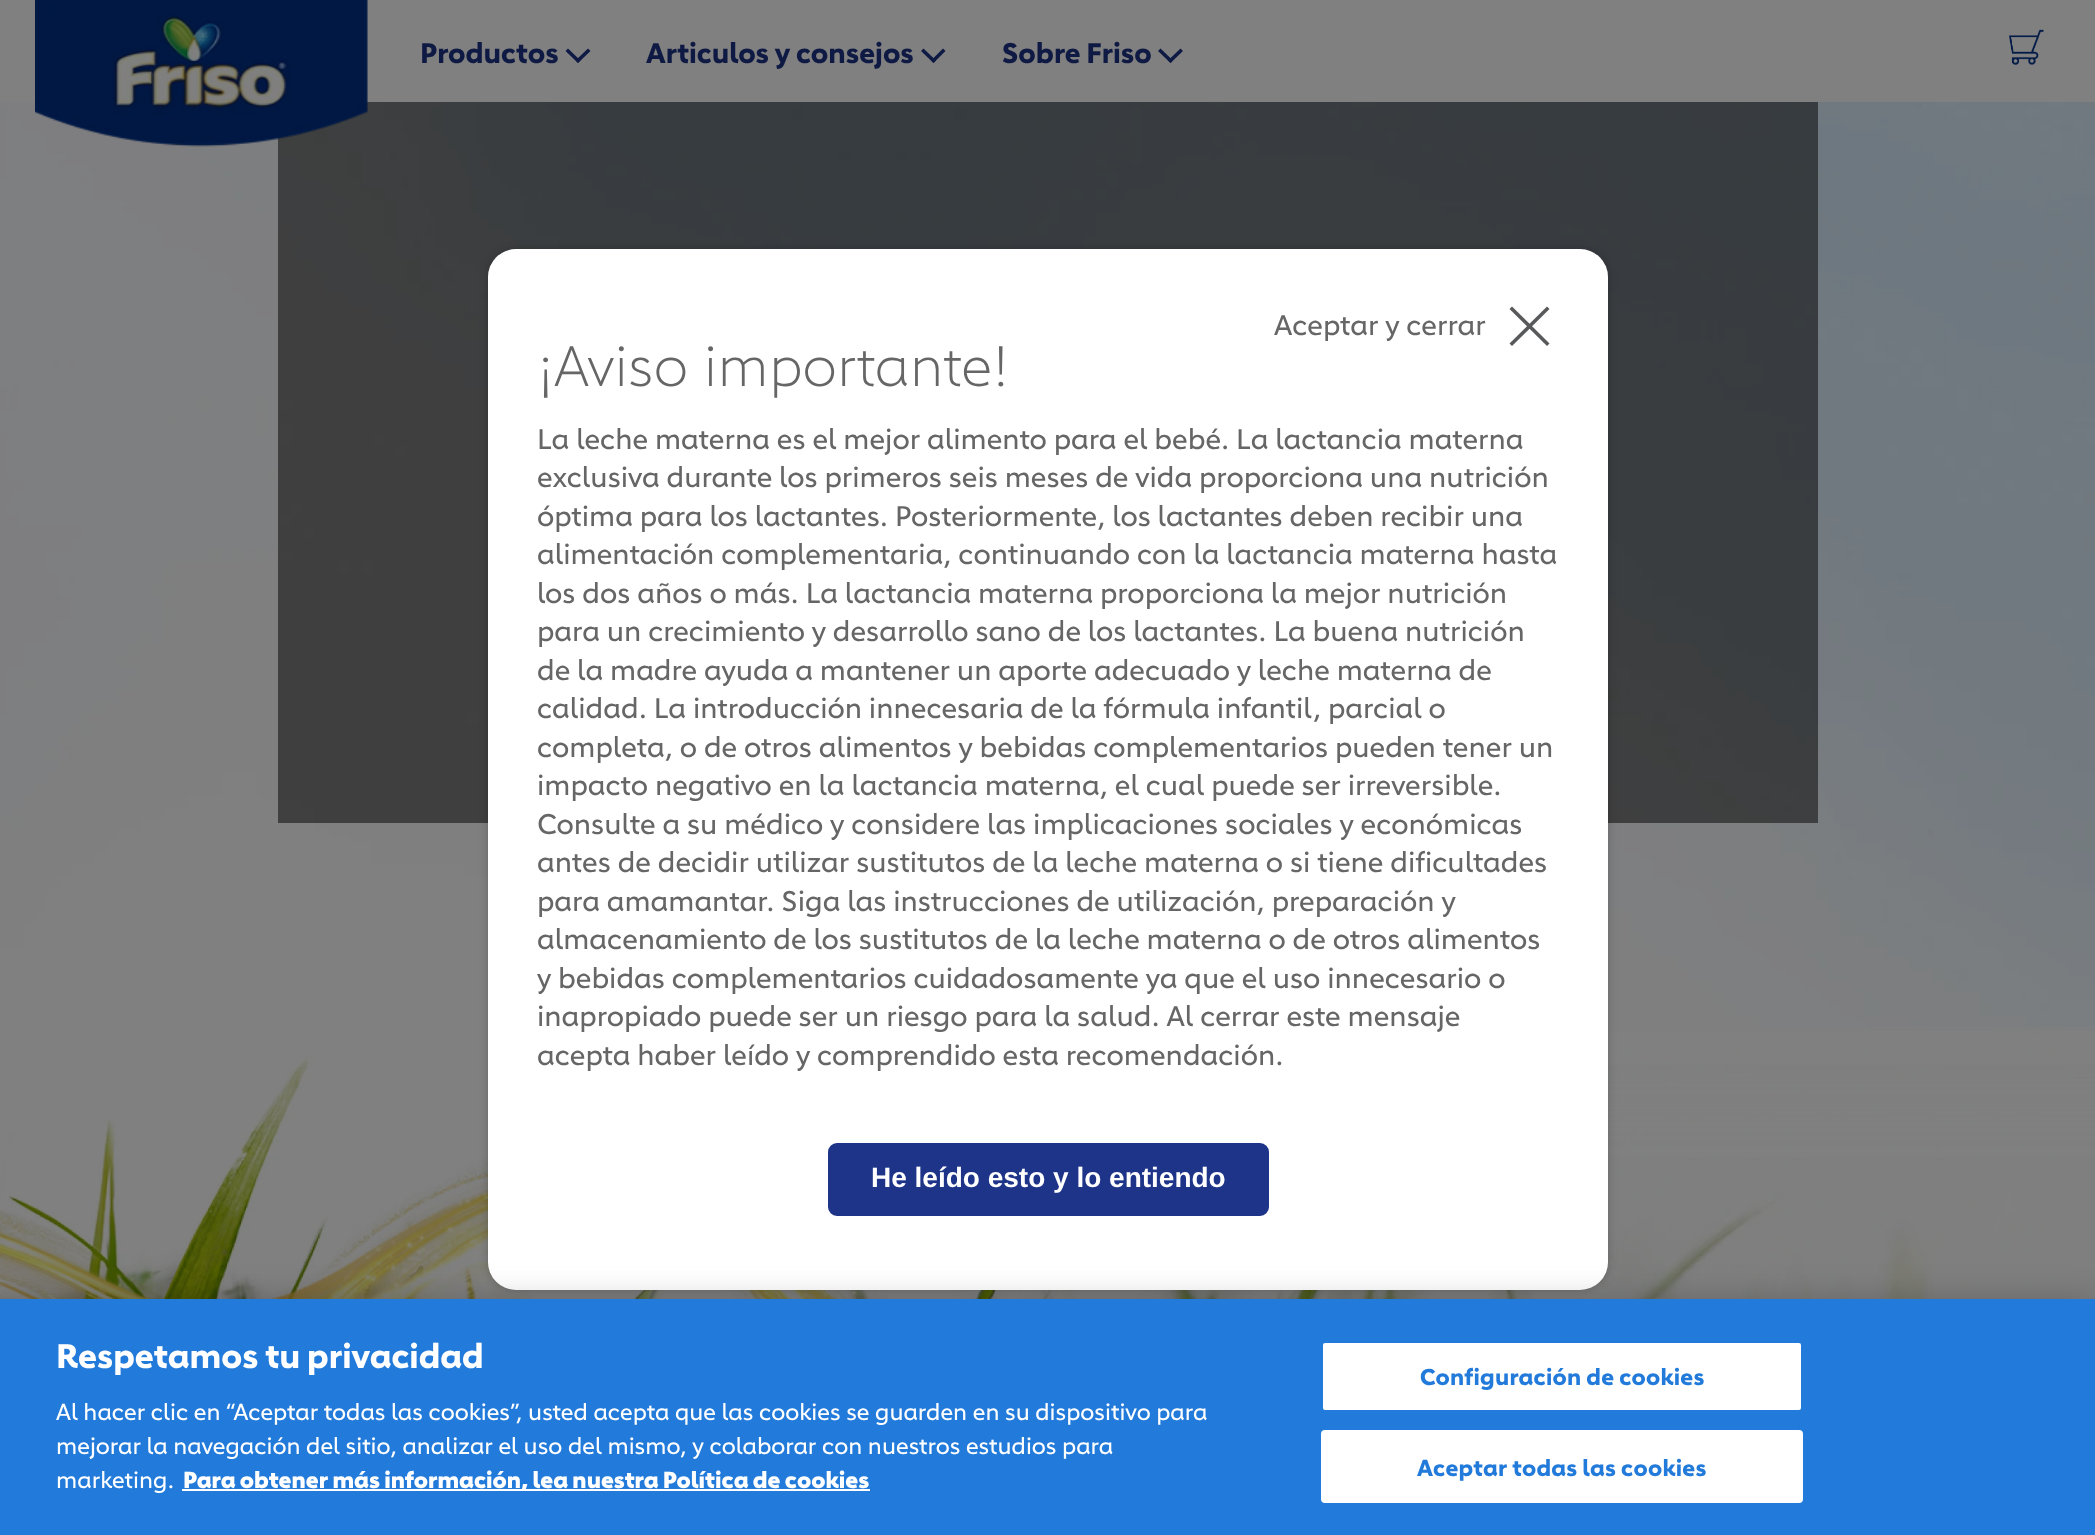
<svg xmlns="http://www.w3.org/2000/svg" width="2095" height="1535">
<defs>
<clipPath id="clip1"><path d="M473 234h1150v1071h-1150zm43 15h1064c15.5 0 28 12.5 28 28v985c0 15.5-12.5 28-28 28h-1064c-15.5 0-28-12.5-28-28v-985c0-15.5 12.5-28 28-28z" clip-rule="evenodd"/></clipPath>
</defs>
<rect width="100%" height="100%" fill="#808080"/>
<image x="0" y="102" width="2095" height="929" href="media/3.png"/>
<rect x="278" y="102" width="1540" height="721" fill="#00000080"/>
<image x="35" y="0" width="333" height="147" href="media/1.png"/>
<text x="420" y="63" style="font-family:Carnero;font-size:28px;font-weight:bold;fill:#0f1a44">Productos</text>
<path d="M588 48.5l2.5 2.5l-12.5 12l-2.5-2.5z" fill="#0f1a44"/>
<path d="M568 48.5l12.5 12l-2.5 2.5l-12.5-12z" fill="#0f1a44"/>
<text x="646" y="63" style="font-family:Carnero;font-size:28px;font-weight:bold;fill:#0f1a44">Articulos y consejos</text>
<path d="M943 48.5l2.5 2.5l-12 12l-2.5-2.5z" fill="#0f1a44"/>
<path d="M923.5 48.5l12.5 12l-2.5 2.5l-12.5-12z" fill="#0f1a44"/>
<text x="1002" y="63" style="font-family:Carnero;font-size:28px;font-weight:bold;fill:#0f1a44">Sobre Friso</text>
<path d="M1180.5 48.5l2.5 2.5l-12.5 12l-2.5-2.5z" fill="#0f1a44"/>
<path d="M1160.5 48.5l12.5 12l-2.5 2.5l-12.5-12z" fill="#0f1a44"/>
<image x="2009" y="29" width="35" height="36" href="media/2.png"/>
<image x="0" y="1026" width="2095" height="273" href="media/4.png"/>
<g clip-path="url(#clip1)">
<rect x="488" y="249" width="1120" height="1041" rx="28" fill="#00000033" filter="blur(4.5px)"/>
</g>
<rect x="488" y="249" width="1120" height="1041" rx="28" fill="#fff"/>
<text x="1274" y="335" style="font-family:Carnero;font-size:28px;fill:#666">Aceptar y cerrar</text>
<path d="M1512 306.5l37.5 37l-2.5 2.5l-37.5-37z" fill="#58595b"/>
<path d="M1509.5 343.5l37.5-37l2.5 2.5l-37.5 37z" fill="#58595b"/>
<text x="537" y="386" style="font-family:Carnero;font-size:56px;font-weight:300;fill:#666">¡Aviso importante!</text>
<text x="537" y="449" style="font-family:Carnero;font-size:28px;fill:#666">La leche materna es el mejor alimento para el bebé. La lactancia materna</text>
<text x="537" y="487" style="font-family:Carnero;font-size:28px;fill:#666">exclusiva durante los primeros seis meses de vida proporciona una nutrición</text>
<text x="537" y="526" style="font-family:Carnero;font-size:28px;fill:#666">óptima para los lactantes. Posteriormente, los lactantes deben recibir una</text>
<text x="537" y="564" style="font-family:Carnero;font-size:28px;fill:#666">alimentación complementaria, continuando con la lactancia materna hasta</text>
<text x="537" y="603" style="font-family:Carnero;font-size:28px;fill:#666">los dos años o más. La lactancia materna proporciona la mejor nutrición</text>
<text x="537" y="641" style="font-family:Carnero;font-size:28px;fill:#666">para un crecimiento y desarrollo sano de los lactantes. La buena nutrición</text>
<text x="537" y="680" style="font-family:Carnero;font-size:28px;fill:#666">de la madre ayuda a mantener un aporte adecuado y leche materna de</text>
<text x="537" y="718" style="font-family:Carnero;font-size:28px;fill:#666">calidad. La introducción innecesaria de la fórmula infantil, parcial o</text>
<text x="537" y="757" style="font-family:Carnero;font-size:28px;fill:#666">completa, o de otros alimentos y bebidas complementarios pueden tener un</text>
<text x="537" y="795" style="font-family:Carnero;font-size:28px;fill:#666">impacto negativo en la lactancia materna, el cual puede ser irreversible.</text>
<text x="537" y="834" style="font-family:Carnero;font-size:28px;fill:#666">Consulte a su médico y considere las implicaciones sociales y económicas</text>
<text x="537" y="872" style="font-family:Carnero;font-size:28px;fill:#666">antes de decidir utilizar sustitutos de la leche materna o si tiene dificultades</text>
<text x="537" y="911" style="font-family:Carnero;font-size:28px;fill:#666">para amamantar. Siga las instrucciones de utilización, preparación y</text>
<text x="537" y="949" style="font-family:Carnero;font-size:28px;fill:#666">almacenamiento de los sustitutos de la leche materna o de otros alimentos</text>
<text x="537" y="988" style="font-family:Carnero;font-size:28px;fill:#666">y bebidas complementarios cuidadosamente ya que el uso innecesario o</text>
<text x="537" y="1026" style="font-family:Carnero;font-size:28px;fill:#666">inapropiado puede ser un riesgo para la salud. Al cerrar este mensaje</text>
<text x="537" y="1065" style="font-family:Carnero;font-size:28px;fill:#666">acepta haber leído y comprendido esta recomendación.</text>
<rect x="829" y="1144" width="439" height="71" rx="8" fill="#1d3488" stroke="#1d3488" stroke-width="2"/>
<text x="871" y="1187" style="font-family:Liberation Sans;font-size:28px;font-weight:bold;fill:#fff">He leído esto y lo entiendo</text>
<rect y="1299" width="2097" height="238" fill="#00000033" filter="blur(16px)"/>
<rect y="1299" width="2095" height="236" fill="#227ada"/>
<text x="56" y="1368" style="font-family:Carnero;font-size:33.6px;font-weight:bold;fill:#fff">Respetamos tu privacidad</text>
<text x="56" y="1420" style="font-family:Carnero;font-size:22.75px;fill:#fff">Al hacer clic en “Aceptar todas las cookies”, usted acepta que las cookies se guarden en su dispositivo para</text>
<text x="56" y="1454" style="font-family:Carnero;font-size:22.75px;fill:#fff">mejorar la navegación del sitio, analizar el uso del mismo, y colaborar con nuestros estudios para</text>
<text x="56" y="1488" style="font-family:Carnero;font-size:22.75px;fill:#fff">marketing.</text>
<rect x="182" y="1489" width="688" height="2" fill="#fff"/>
<text x="183" y="1488" style="font-family:Carnero;font-size:22.75px;font-weight:900;fill:#fff">Para obtener más información, lea nuestra Política de cookies</text>
<rect x="1322" y="1342" width="480" height="69" rx="3" fill="#fff" stroke="#227ada" stroke-width="2"/>
<text x="1420" y="1385" style="font-family:Carnero;font-size:22.75px;font-weight:bold;letter-spacing:0.25px;fill:#227ada">Configuración de cookies</text>
<rect x="1322" y="1431" width="480" height="71" rx="3" fill="#fff" stroke="#fff" stroke-width="2"/>
<text x="1417" y="1476" style="font-family:Carnero;font-size:22.75px;font-weight:bold;letter-spacing:0.25px;fill:#227ada">Aceptar todas las cookies</text>
</svg>
